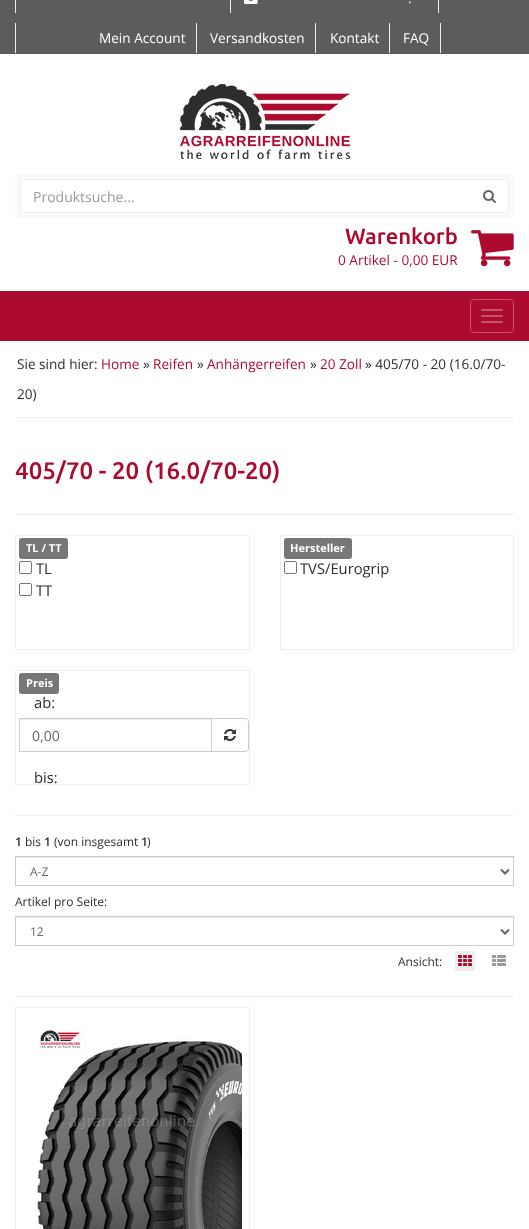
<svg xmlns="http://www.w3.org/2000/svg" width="529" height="1229">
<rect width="100%" height="100%" fill="#fff"/>
<rect width="529" height="54" fill="#5c5c5c"/>
<rect x="15" width="1" height="13" fill="#eee"/>
<rect x="230" width="1" height="13" fill="#eee"/>
<rect x="438" width="1" height="13" fill="#eee"/>
<image x="244" y="0" width="14" height="4" href="media/1.png"/>
<text x="408" y="3" style="font-family:Open Sans;font-size:13.6px;fill:#fff">.</text>
<rect x="15" y="23" width="1" height="30" fill="#eee"/>
<rect x="196" y="23" width="1" height="30" fill="#eee"/>
<text x="99" y="43" style="font-family:Open Sans;font-size:13.6px;fill:#fff">Mein Account</text>
<rect x="315" y="23" width="1" height="30" fill="#eee"/>
<text x="210" y="43" style="font-family:Open Sans;font-size:13.6px;fill:#fff">Versandkosten</text>
<rect x="389" y="23" width="1" height="30" fill="#eee"/>
<text x="330" y="43" style="font-family:Open Sans;font-size:13.6px;fill:#fff">Kontakt</text>
<rect x="440" y="23" width="1" height="30" fill="#eee"/>
<text x="403" y="43" style="font-family:Open Sans;font-size:13.6px;fill:#fff">FAQ</text>
<image x="180" y="84" width="170" height="75" href="media/2.png"/>
<rect x="15" y="174" width="499" height="44" fill="#fafafa"/>
<rect x="470.5" y="179.5" width="38" height="33" fill="#fff" stroke="#eee"/>
<rect x="21" y="180" width="450" height="32" fill="#fff"/>
<rect x="20" y="179" width="451" height="1" fill="#eee"/>
<rect x="20" y="212" width="451" height="1" fill="#eee"/>
<rect x="20" y="179" width="1" height="34" fill="#eee"/>
<text x="33" y="202" style="font-family:Open Sans;font-size:14px;fill:#999">Produktsuche...</text>
<image x="483" y="190" width="13" height="13" href="media/3.png"/>
<text x="345" y="244" style="font-family:Ubuntu;font-size:22px;font-weight:500;fill:#ac0b2f">Warenkorb</text>
<image x="471" y="230" width="43" height="37" href="media/4.png"/>
<text x="338" y="265" style="font-family:Open Sans;font-size:13.6px;fill:#ac0b2f">0 Artikel - 0,00 EUR</text>
<rect y="291" width="529" height="50" fill="#ac0b2f"/>
<rect x="470.5" y="299.5" width="43" height="33" rx="3.5" fill="none" stroke="#c5546d"/>
<rect x="481" y="309" width="22" height="2" rx="1" fill="#c5546d"/>
<rect x="481" y="315" width="22" height="2" rx="1" fill="#c5546d"/>
<rect x="481" y="321" width="22" height="2" rx="1" fill="#c5546d"/>
<rect x="15" y="417" width="499" height="1" fill="#eee"/>
<text x="17" y="369" style="font-family:Open Sans;font-size:13.6px;fill:#2d2d2d">Sie sind hier:</text>
<text x="101" y="369" style="font-family:Open Sans;font-size:13.6px;fill:#ac0b2f">Home</text>
<text x="143" y="369" style="font-family:Open Sans;font-size:13.6px;fill:#2d2d2d">»</text>
<text x="153" y="369" style="font-family:Open Sans;font-size:13.6px;fill:#ac0b2f">Reifen</text>
<text x="197" y="369" style="font-family:Open Sans;font-size:13.6px;fill:#2d2d2d">»</text>
<text x="207" y="369" style="font-family:Open Sans;font-size:13.6px;fill:#ac0b2f">Anhängerreifen</text>
<text x="310" y="369" style="font-family:Open Sans;font-size:13.6px;fill:#2d2d2d">»</text>
<text x="320" y="369" style="font-family:Open Sans;font-size:13.6px;fill:#ac0b2f">20 Zoll</text>
<text x="365" y="369" style="font-family:Open Sans;font-size:13.6px;fill:#2d2d2d">» 405/70 - 20 (16.0/70-</text>
<text x="17" y="399" style="font-family:Open Sans;font-size:13.6px;fill:#2d2d2d">20)</text>
<text x="15" y="479" style="font-family:Ubuntu;font-size:24px;font-weight:500;fill:#ac0b2f">405/70 - 20 (16.0/70-20)</text>
<rect x="15" y="514" width="499" height="1" fill="#eee"/>
<rect x="15.5" y="535.5" width="234" height="114" fill="none" stroke="#eee"/>
<rect x="19" y="538" width="49" height="21" rx="3" fill="#777"/>
<text x="26" y="552" style="font-family:Open Sans;font-size:11px;font-weight:bold;fill:#fff">TL / TT</text>
<rect x="19.5" y="561.5" width="12" height="12" rx="1.5" fill="none" stroke="#767676"/>
<text x="36" y="574" style="font-family:Open Sans;font-size:14.75px;fill:#2d2d2d">TL</text>
<rect x="19.5" y="583.5" width="12" height="12" rx="1.5" fill="none" stroke="#767676"/>
<text x="36" y="596" style="font-family:Open Sans;font-size:14.75px;fill:#2d2d2d">TT</text>
<rect x="280.5" y="535.5" width="233" height="114" fill="none" stroke="#eee"/>
<rect x="284" y="538" width="68" height="21" rx="3" fill="#777"/>
<text x="290" y="552" style="font-family:Open Sans;font-size:11px;font-weight:bold;fill:#fff">Hersteller</text>
<rect x="284.5" y="561.5" width="12" height="12" rx="1.5" fill="none" stroke="#767676"/>
<text x="300" y="574" style="font-family:Open Sans;font-size:14.75px;fill:#2d2d2d">TVS/Eurogrip</text>
<rect x="15.5" y="670.5" width="234" height="114" fill="none" stroke="#eee"/>
<rect x="19" y="673" width="40" height="21" rx="3" fill="#777"/>
<text x="26" y="687" style="font-family:Open Sans;font-size:11px;font-weight:bold;fill:#fff">Preis</text>
<text x="34" y="708" style="font-family:Open Sans;font-size:14.75px;fill:#2d2d2d">ab:</text>
<rect x="20" y="719" width="191" height="1" fill="#ececec"/>
<path d="M211.5 718.5h33.5c2 0 3.5 1.5 3.5 3.5v26c0 2-1.5 3.5-3.5 3.5h-33.5z" fill="none" stroke="#ccc"/>
<rect x="19.5" y="718.5" width="192" height="33" fill="none" stroke="#ccc"/>
<text x="32" y="741" style="font-family:Open Sans;font-size:14px;fill:#666">0,00</text>
<image x="224" y="729" width="12" height="12" href="media/5.png"/>
<text x="34" y="783" style="font-family:Open Sans;font-size:14.75px;fill:#2d2d2d">bis:</text>
<rect x="15" y="815" width="499" height="1" fill="#eee"/>
<rect x="15" y="996" width="499" height="1" fill="#eee"/>
<text x="15" y="846" style="font-family:Open Sans;font-size:12px;font-weight:600;fill:#2d2d2d">1</text>
<text x="25" y="846" style="font-family:Open Sans;font-size:12px;fill:#2d2d2d">bis</text>
<text x="44" y="846" style="font-family:Open Sans;font-size:12px;font-weight:600;fill:#2d2d2d">1</text>
<text x="54" y="846" style="font-family:Open Sans;font-size:12px;fill:#2d2d2d">(von insgesamt</text>
<text x="141" y="846" style="font-family:Open Sans;font-size:12px;font-weight:600;fill:#2d2d2d">1</text>
<text x="147" y="846" style="font-family:Open Sans;font-size:12px;fill:#2d2d2d">)</text>
<rect x="16" y="857" width="497" height="1" fill="#ececec"/>
<rect x="15.5" y="856.5" width="498" height="29" fill="none" stroke="#ccc"/>
<path d="M501 869.5l4 4l4-4" fill="none" stroke="#666" stroke-width="2"/>
<text x="30" y="876" style="font-family:Open Sans;font-size:12px;fill:#666">A-Z</text>
<text x="15" y="906" style="font-family:Open Sans;font-size:12px;fill:#2d2d2d">Artikel pro Seite:</text>
<rect x="16" y="917" width="497" height="1" fill="#ececec"/>
<rect x="15.5" y="916.5" width="498" height="29" fill="none" stroke="#ccc"/>
<path d="M501 929.5l4 4l4-4" fill="none" stroke="#666" stroke-width="2"/>
<text x="30" y="936" style="font-family:Open Sans;font-size:12px;fill:#666">12</text>
<text x="398" y="966" style="font-family:Open Sans;font-size:12px;fill:#2d2d2d">Ansicht:</text>
<rect x="455" y="951" width="20" height="20" fill="#eee"/>
<image x="458" y="955" width="14" height="11" href="media/6.png"/>
<image x="492" y="955" width="14" height="11" href="media/7.png"/>
<rect x="15.5" y="1007.5" width="234" height="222" fill="none" stroke="#eee"/>
<image x="35" y="1028" width="207" height="201" href="media/8.png"/>
</svg>
